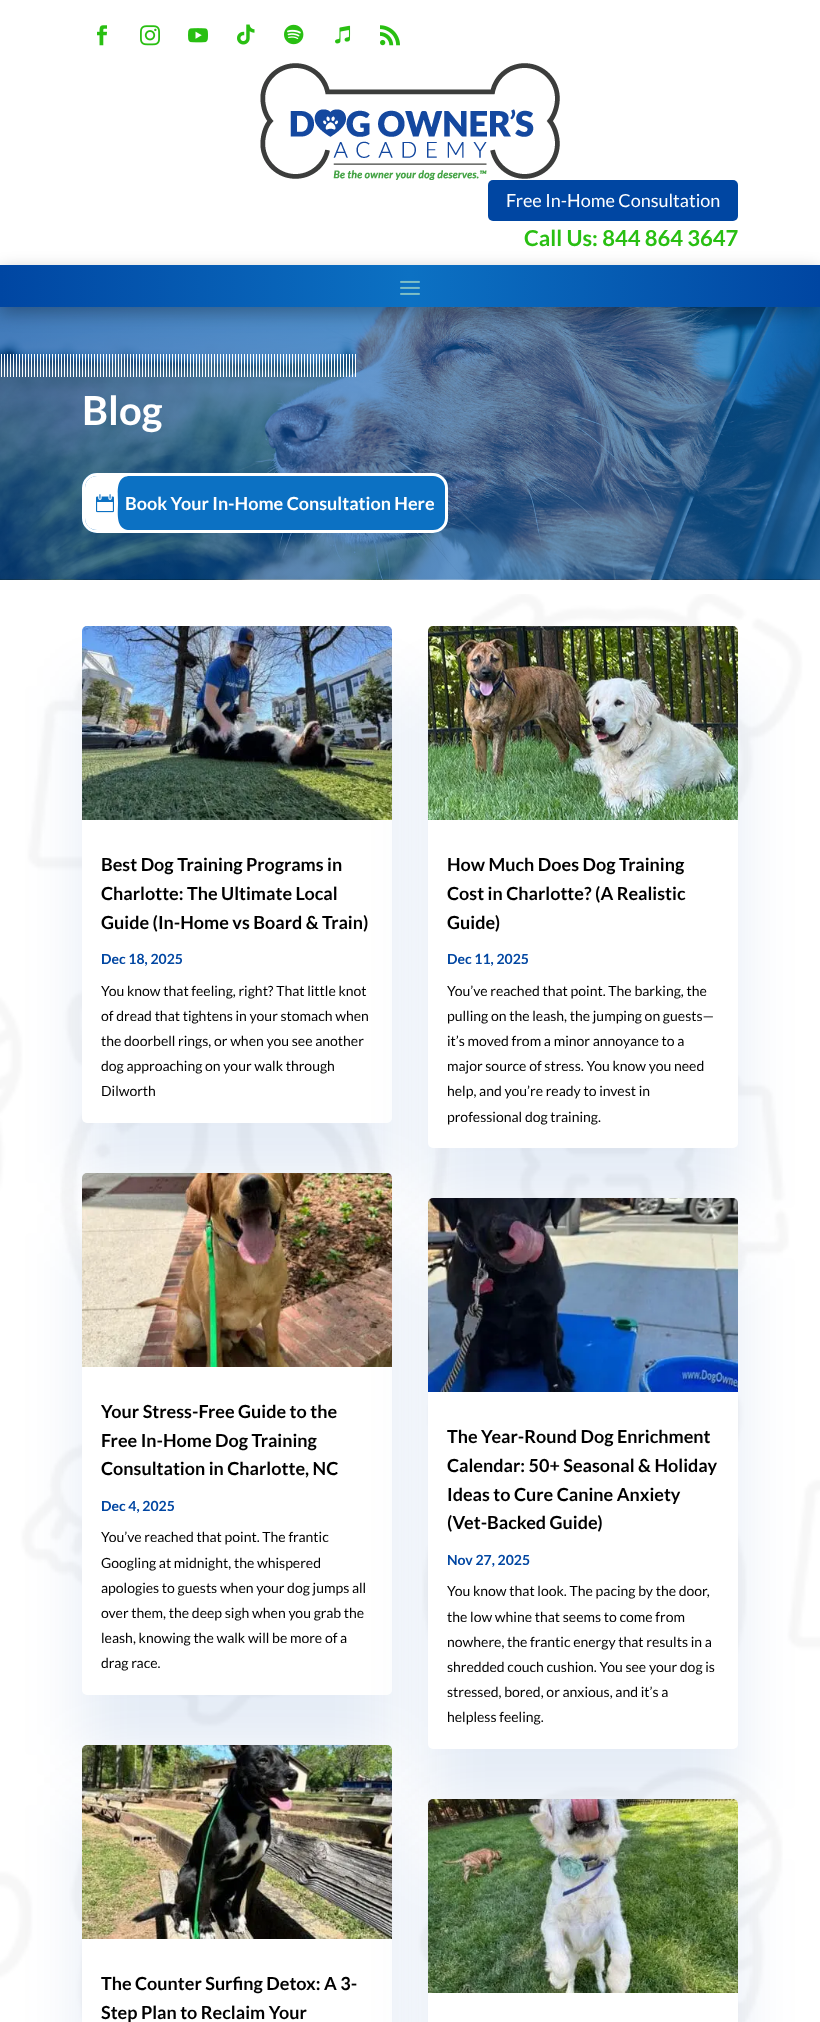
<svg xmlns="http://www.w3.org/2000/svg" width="820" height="2022">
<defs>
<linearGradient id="g1" gradientUnits="userSpaceOnUse" x1="0" y1="286" x2="820" y2="286"><stop offset="0" stop-color="#0046a2"/><stop offset="0.5" stop-color="#0c71c3"/><stop offset="1" stop-color="#0046a2"/></linearGradient>
</defs>
<rect width="100%" height="100%" fill="#fff"/>
<image x="97" y="25" width="10" height="21" href="media/1.png"/>
<image x="140" y="25" width="20" height="21" href="media/2.png"/>
<image x="188" y="28" width="20" height="15" href="media/3.png"/>
<image x="237" y="24" width="18" height="21" href="media/4.png"/>
<image x="284" y="24" width="20" height="21" href="media/5.png"/>
<image x="335" y="25" width="16" height="19" href="media/6.png"/>
<image x="380" y="25" width="20" height="21" href="media/7.png"/>
<image x="260" y="63" width="300" height="117" href="media/8.png"/>
<rect x="488" y="180" width="250" height="41" rx="5" fill="#0046a2"/>
<text x="506" y="207" style="font-family:Lato;font-size:18px;fill:#fff">Free In-Home Consultation</text>
<text x="524" y="246" style="font-family:Lato;font-size:22px;font-weight:bold;fill:#29bf12">Call Us: 844 864 3647</text>
<image x="0" y="307" width="820" height="273" href="media/10.png"/>
<rect y="271" width="820" height="42" fill="#0000004d" filter="blur(9px)"/>
<rect y="265" width="820" height="42" fill="url(#g1)"/>
<image x="400" y="280" width="20" height="15" href="media/9.png"/>
<image x="1" y="354" width="355" height="23" href="media/11.png"/>
<text x="82" y="425" style="font-family:Lato;font-size:40px;font-weight:bold;fill:#fff">Blog</text>
<rect x="82" y="473" width="366" height="60" rx="15" fill="#0c71c3"/>
<path d="M97 476c-7 0-12 5-12 12v30c0 7 5 12 12 12h33c-15 0-12-17-12-27c0-10-3-27 12-27z" fill="#fff"/>
<rect x="83.5" y="474.5" width="363" height="57" rx="13.5" fill="none" stroke="#fff" stroke-width="3"/>
<image x="96" y="494" width="18" height="19" href="media/12.png"/>
<text x="125" y="510" style="font-family:Lato;font-size:18px;font-weight:bold;fill:#fff">Book Your In-Home Consultation Here</text>
<image x="0" y="594" width="820" height="1428" href="media/13.png"/>
<rect x="82" y="686" width="310" height="497" rx="5" fill="#0046a21a" filter="blur(30px)"/>
<rect x="82" y="626" width="310" height="497" rx="5" fill="#fff"/>
<rect x="82" y="1233" width="310" height="522" rx="5" fill="#0046a21a" filter="blur(30px)"/>
<rect x="82" y="1173" width="310" height="522" rx="5" fill="#fff"/>
<rect x="428" y="686" width="310" height="522" rx="5" fill="#0046a21a" filter="blur(30px)"/>
<image x="82" y="626" width="310" height="194" href="media/14.png"/>
<text x="101" y="871" style="font-family:Lato;font-size:18px;font-weight:bold;fill:#000">Best Dog Training Programs in</text>
<text x="101" y="900" style="font-family:Lato;font-size:18px;font-weight:bold;fill:#000">Charlotte: The Ultimate Local</text>
<text x="101" y="929" style="font-family:Lato;font-size:18px;font-weight:bold;fill:#000">Guide (In-Home vs Board &amp; Train)</text>
<text x="101" y="964" style="font-family:Lato;font-size:14px;font-weight:bold;fill:#0046a2">Dec 18, 2025</text>
<text x="101" y="996" style="font-family:Lato;font-size:14px;fill:#000">You know that feeling, right? That little knot</text>
<text x="101" y="1021" style="font-family:Lato;font-size:14px;fill:#000">of dread that tightens in your stomach when</text>
<text x="101" y="1046" style="font-family:Lato;font-size:14px;fill:#000">the doorbell rings, or when you see another</text>
<text x="101" y="1071" style="font-family:Lato;font-size:14px;fill:#000">dog approaching on your walk through</text>
<text x="101" y="1096" style="font-family:Lato;font-size:14px;fill:#000">Dilworth</text>
<rect x="82" y="1805" width="310" height="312" rx="5" fill="#0046a21a" filter="blur(30px)"/>
<rect x="82" y="1745" width="310" height="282" rx="5" fill="#fff"/>
<rect x="428" y="1258" width="310" height="551" rx="5" fill="#0046a21a" filter="blur(30px)"/>
<image x="82" y="1173" width="310" height="194" href="media/15.png"/>
<text x="101" y="1418" style="font-family:Lato;font-size:18px;font-weight:bold;fill:#000">Your Stress-Free Guide to the</text>
<text x="101" y="1447" style="font-family:Lato;font-size:18px;font-weight:bold;fill:#000">Free In-Home Dog Training</text>
<text x="101" y="1475" style="font-family:Lato;font-size:18px;font-weight:bold;fill:#000">Consultation in Charlotte, NC</text>
<text x="101" y="1511" style="font-family:Lato;font-size:14px;font-weight:bold;fill:#0046a2">Dec 4, 2025</text>
<text x="101" y="1542" style="font-family:Lato;font-size:14px;fill:#000">You’ve reached that point. The frantic</text>
<text x="101" y="1568" style="font-family:Lato;font-size:14px;fill:#000">Googling at midnight, the whispered</text>
<text x="101" y="1593" style="font-family:Lato;font-size:14px;fill:#000">apologies to guests when your dog jumps all</text>
<text x="101" y="1618" style="font-family:Lato;font-size:14px;fill:#000">over them, the deep sigh when you grab the</text>
<text x="101" y="1643" style="font-family:Lato;font-size:14px;fill:#000">leash, knowing the walk will be more of a</text>
<text x="101" y="1668" style="font-family:Lato;font-size:14px;fill:#000">drag race.</text>
<rect x="428" y="1859" width="310" height="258" rx="5" fill="#0046a21a" filter="blur(30px)"/>
<image x="82" y="1745" width="310" height="194" href="media/16.png"/>
<text x="101" y="1990" style="font-family:Lato;font-size:18px;font-weight:bold;fill:#000">The Counter Surfing Detox: A 3-</text>
<text x="101" y="2019" style="font-family:Lato;font-size:18px;font-weight:bold;fill:#000">Step Plan to Reclaim Your</text>
<rect x="428" y="626" width="310" height="522" rx="5" fill="#fff"/>
<image x="428" y="626" width="310" height="194" href="media/17.png"/>
<text x="447" y="871" style="font-family:Lato;font-size:18px;font-weight:bold;fill:#000">How Much Does Dog Training</text>
<text x="447" y="900" style="font-family:Lato;font-size:18px;font-weight:bold;fill:#000">Cost in Charlotte? (A Realistic</text>
<text x="447" y="929" style="font-family:Lato;font-size:18px;font-weight:bold;fill:#000">Guide)</text>
<text x="447" y="964" style="font-family:Lato;font-size:14px;font-weight:bold;fill:#0046a2">Dec 11, 2025</text>
<text x="447" y="996" style="font-family:Lato;font-size:14px;fill:#000">You’ve reached that point. The barking, the</text>
<text x="447" y="1021" style="font-family:Lato;font-size:14px;fill:#000">pulling on the leash, the jumping on guests—</text>
<text x="447" y="1046" style="font-family:Lato;font-size:14px;fill:#000">it’s moved from a minor annoyance to a</text>
<text x="447" y="1071" style="font-family:Lato;font-size:14px;fill:#000">major source of stress. You know you need</text>
<text x="447" y="1096" style="font-family:Lato;font-size:14px;fill:#000">help, and you’re ready to invest in</text>
<text x="447" y="1122" style="font-family:Lato;font-size:14px;fill:#000">professional dog training.</text>
<rect x="428" y="1198" width="310" height="551" rx="5" fill="#fff"/>
<image x="428" y="1198" width="310" height="194" href="media/18.png"/>
<text x="447" y="1443" style="font-family:Lato;font-size:18px;font-weight:bold;fill:#000">The Year-Round Dog Enrichment</text>
<text x="447" y="1472" style="font-family:Lato;font-size:18px;font-weight:bold;fill:#000">Calendar: 50+ Seasonal &amp; Holiday</text>
<text x="447" y="1501" style="font-family:Lato;font-size:18px;font-weight:bold;fill:#000">Ideas to Cure Canine Anxiety</text>
<text x="447" y="1529" style="font-family:Lato;font-size:18px;font-weight:bold;fill:#000">(Vet-Backed Guide)</text>
<text x="447" y="1565" style="font-family:Lato;font-size:14px;font-weight:bold;fill:#0046a2">Nov 27, 2025</text>
<text x="447" y="1596" style="font-family:Lato;font-size:14px;fill:#000">You know that look. The pacing by the door,</text>
<text x="447" y="1622" style="font-family:Lato;font-size:14px;fill:#000">the low whine that seems to come from</text>
<text x="447" y="1647" style="font-family:Lato;font-size:14px;fill:#000">nowhere, the frantic energy that results in a</text>
<text x="447" y="1672" style="font-family:Lato;font-size:14px;fill:#000">shredded couch cushion. You see your dog is</text>
<text x="447" y="1697" style="font-family:Lato;font-size:14px;fill:#000">stressed, bored, or anxious, and it’s a</text>
<text x="447" y="1722" style="font-family:Lato;font-size:14px;fill:#000">helpless feeling.</text>
<rect x="428" y="1799" width="310" height="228" rx="5" fill="#fff"/>
<image x="428" y="1799" width="310" height="194" href="media/19.png"/>
</svg>
